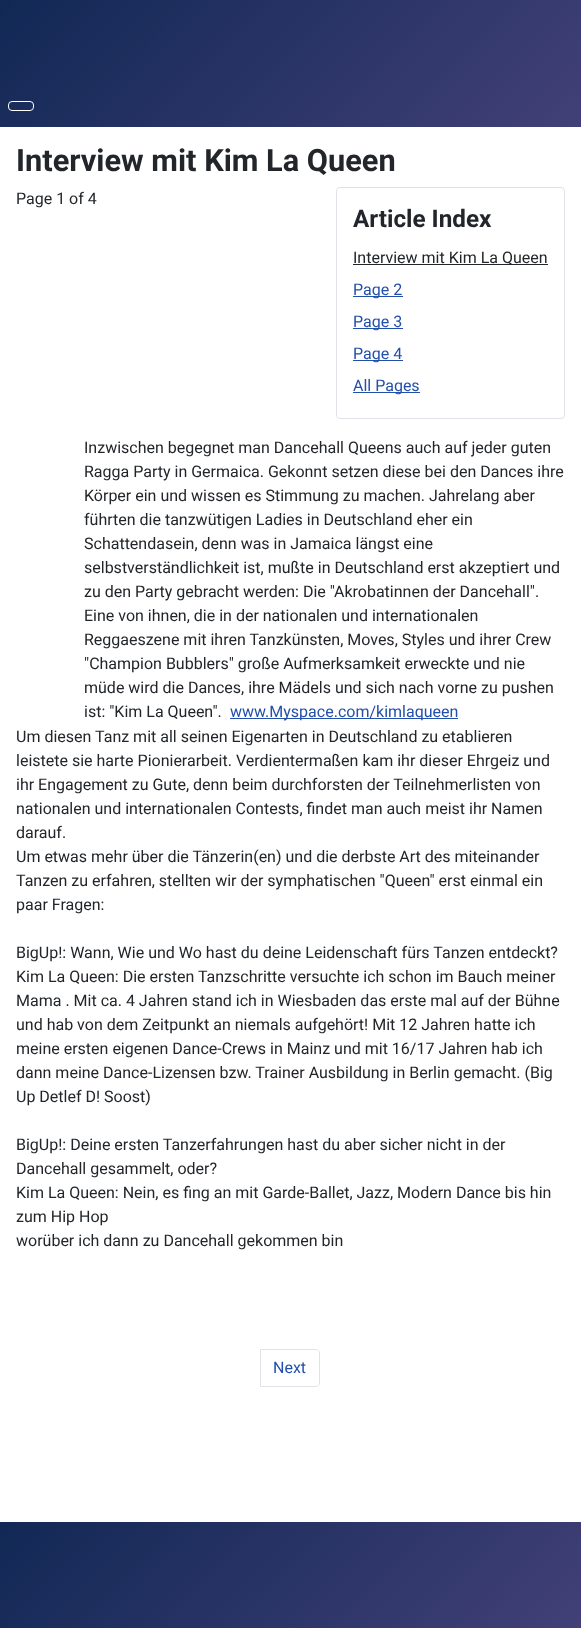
<svg xmlns="http://www.w3.org/2000/svg" width="581" height="1628">
<defs>
<linearGradient id="g1" gradientUnits="userSpaceOnUse" x1="113" y1="-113" x2="468" y2="241"><stop offset="0" stop-color="#112855"/><stop offset="1" stop-color="#424077"/></linearGradient>
<linearGradient id="g2" gradientUnits="userSpaceOnUse" x1="119" y1="1403" x2="462" y2="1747"><stop offset="0" stop-color="#112855"/><stop offset="1" stop-color="#424077"/></linearGradient>
</defs>
<rect width="100%" height="100%" fill="#fff"/>
<rect width="581" height="127" fill="url(#g1)"/>
<rect x="8.5" y="101.5" width="25" height="9" rx="3.5" fill="none" stroke="#fff"/>
<text x="16" y="171" style="font-family:Roboto;font-size:30.75px;font-weight:bold;fill:#22262a">Interview mit Kim La Queen</text>
<text x="16" y="204" style="font-family:Roboto;font-size:16px;fill:#22262a">Page 1 of 4</text>
<text x="84" y="453" style="font-family:Roboto;font-size:16px;fill:#22262a">Inzwischen begegnet man Dancehall Queens auch auf jeder guten</text>
<text x="84" y="477" style="font-family:Roboto;font-size:16px;fill:#22262a">Ragga Party in Germaica. Gekonnt setzen diese bei den Dances ihre</text>
<text x="84" y="501" style="font-family:Roboto;font-size:16px;fill:#22262a">Körper ein und wissen es Stimmung zu machen. Jahrelang aber</text>
<text x="84" y="525" style="font-family:Roboto;font-size:16px;fill:#22262a">führten die tanzwütigen Ladies in Deutschland eher ein</text>
<text x="84" y="549" style="font-family:Roboto;font-size:16px;fill:#22262a">Schattendasein, denn was in Jamaica längst eine</text>
<text x="84" y="573" style="font-family:Roboto;font-size:16px;fill:#22262a">selbstverständlichkeit ist, mußte in Deutschland erst akzeptiert und</text>
<text x="84" y="597" style="font-family:Roboto;font-size:16px;fill:#22262a">zu den Party gebracht werden: Die "Akrobatinnen der Dancehall".</text>
<text x="84" y="621" style="font-family:Roboto;font-size:16px;fill:#22262a">Eine von ihnen, die in der nationalen und internationalen</text>
<text x="84" y="645" style="font-family:Roboto;font-size:16px;fill:#22262a">Reggaeszene mit ihren Tanzkünsten, Moves, Styles und ihrer Crew</text>
<text x="84" y="669" style="font-family:Roboto;font-size:16px;fill:#22262a">"Champion Bubblers" große Aufmerksamkeit erweckte und nie</text>
<text x="84" y="693" style="font-family:Roboto;font-size:16px;fill:#22262a">müde wird die Dances, ihre Mädels und sich nach vorne zu pushen</text>
<text x="84" y="717" style="font-family:Roboto;font-size:16px;fill:#22262a">ist: "Kim La Queen".</text>
<rect x="230" y="718" width="228" height="1" fill="#224faa"/>
<text x="230" y="717" style="font-family:Roboto;font-size:16px;fill:#224faa">www.Myspace.com/kimlaqueen</text>
<text x="16" y="742" style="font-family:Roboto;font-size:16px;fill:#22262a">Um diesen Tanz mit all seinen Eigenarten in Deutschland zu etablieren</text>
<text x="16" y="766" style="font-family:Roboto;font-size:16px;fill:#22262a">leistete sie harte Pionierarbeit. Verdientermaßen kam ihr dieser Ehrgeiz und</text>
<text x="16" y="790" style="font-family:Roboto;font-size:16px;fill:#22262a">ihr Engagement zu Gute, denn beim durchforsten der Teilnehmerlisten von</text>
<text x="16" y="814" style="font-family:Roboto;font-size:16px;fill:#22262a">nationalen und internationalen Contests, findet man auch meist ihr Namen</text>
<text x="16" y="838" style="font-family:Roboto;font-size:16px;fill:#22262a">darauf.</text>
<text x="16" y="862" style="font-family:Roboto;font-size:16px;fill:#22262a">Um etwas mehr über die Tänzerin(en) und die derbste Art des miteinander</text>
<text x="16" y="886" style="font-family:Roboto;font-size:16px;fill:#22262a">Tanzen zu erfahren, stellten wir der symphatischen "Queen" erst einmal ein</text>
<text x="16" y="910" style="font-family:Roboto;font-size:16px;fill:#22262a">paar Fragen:</text>
<text x="16" y="958" style="font-family:Roboto;font-size:16px;fill:#22262a">BigUp!: Wann, Wie und Wo hast du deine Leidenschaft fürs Tanzen entdeckt?</text>
<text x="16" y="982" style="font-family:Roboto;font-size:16px;fill:#22262a">Kim La Queen: Die ersten Tanzschritte versuchte ich schon im Bauch meiner</text>
<text x="16" y="1006" style="font-family:Roboto;font-size:16px;fill:#22262a">Mama . Mit ca. 4 Jahren stand ich in Wiesbaden das erste mal auf der Bühne</text>
<text x="16" y="1030" style="font-family:Roboto;font-size:16px;fill:#22262a">und hab von dem Zeitpunkt an niemals aufgehört! Mit 12 Jahren hatte ich</text>
<text x="16" y="1054" style="font-family:Roboto;font-size:16px;fill:#22262a">meine ersten eigenen Dance-Crews in Mainz und mit 16/17 Jahren hab ich</text>
<text x="16" y="1078" style="font-family:Roboto;font-size:16px;fill:#22262a">dann meine Dance-Lizensen bzw. Trainer Ausbildung in Berlin gemacht. (Big</text>
<text x="16" y="1102" style="font-family:Roboto;font-size:16px;fill:#22262a">Up Detlef D! Soost)</text>
<text x="16" y="1150" style="font-family:Roboto;font-size:16px;fill:#22262a">BigUp!: Deine ersten Tanzerfahrungen hast du aber sicher nicht in der</text>
<text x="16" y="1174" style="font-family:Roboto;font-size:16px;fill:#22262a">Dancehall gesammelt, oder?</text>
<text x="16" y="1198" style="font-family:Roboto;font-size:16px;fill:#22262a">Kim La Queen: Nein, es fing an mit Garde-Ballet, Jazz, Modern Dance bis hin</text>
<text x="16" y="1222" style="font-family:Roboto;font-size:16px;fill:#22262a">zum Hip Hop</text>
<text x="16" y="1246" style="font-family:Roboto;font-size:16px;fill:#22262a">worüber ich dann zu Dancehall gekommen bin</text>
<path d="M260.5 1349.5h55.5c2 0 3.5 1.5 3.5 3.5v30c0 2-1.5 3.5-3.5 3.5h-55.5z" fill="none" stroke="#dfe3e7"/>
<text x="273" y="1373" style="font-family:Roboto;font-size:16px;fill:#224faa">Next</text>
<rect x="336.5" y="187.5" width="228" height="231" rx="3.5" fill="none" stroke="#dfe3e7"/>
<text x="353" y="227" style="font-family:Roboto;font-size:24.25px;font-weight:bold;fill:#22262a">Article Index</text>
<rect x="353" y="264" width="195" height="1" fill="#22262a"/>
<text x="353" y="263" style="font-family:Roboto;font-size:16px;fill:#22262a">Interview mit Kim La Queen</text>
<rect x="353" y="296" width="50" height="1" fill="#224faa"/>
<text x="353" y="295" style="font-family:Roboto;font-size:16px;fill:#224faa">Page 2</text>
<rect x="353" y="328" width="50" height="1" fill="#224faa"/>
<text x="353" y="327" style="font-family:Roboto;font-size:16px;fill:#224faa">Page 3</text>
<rect x="353" y="360" width="50" height="1" fill="#224faa"/>
<text x="353" y="359" style="font-family:Roboto;font-size:16px;fill:#224faa">Page 4</text>
<rect x="353" y="392" width="67" height="1" fill="#224faa"/>
<text x="353" y="391" style="font-family:Roboto;font-size:16px;fill:#224faa">All Pages</text>
<rect y="1522" width="581" height="106" fill="url(#g2)"/>
</svg>
